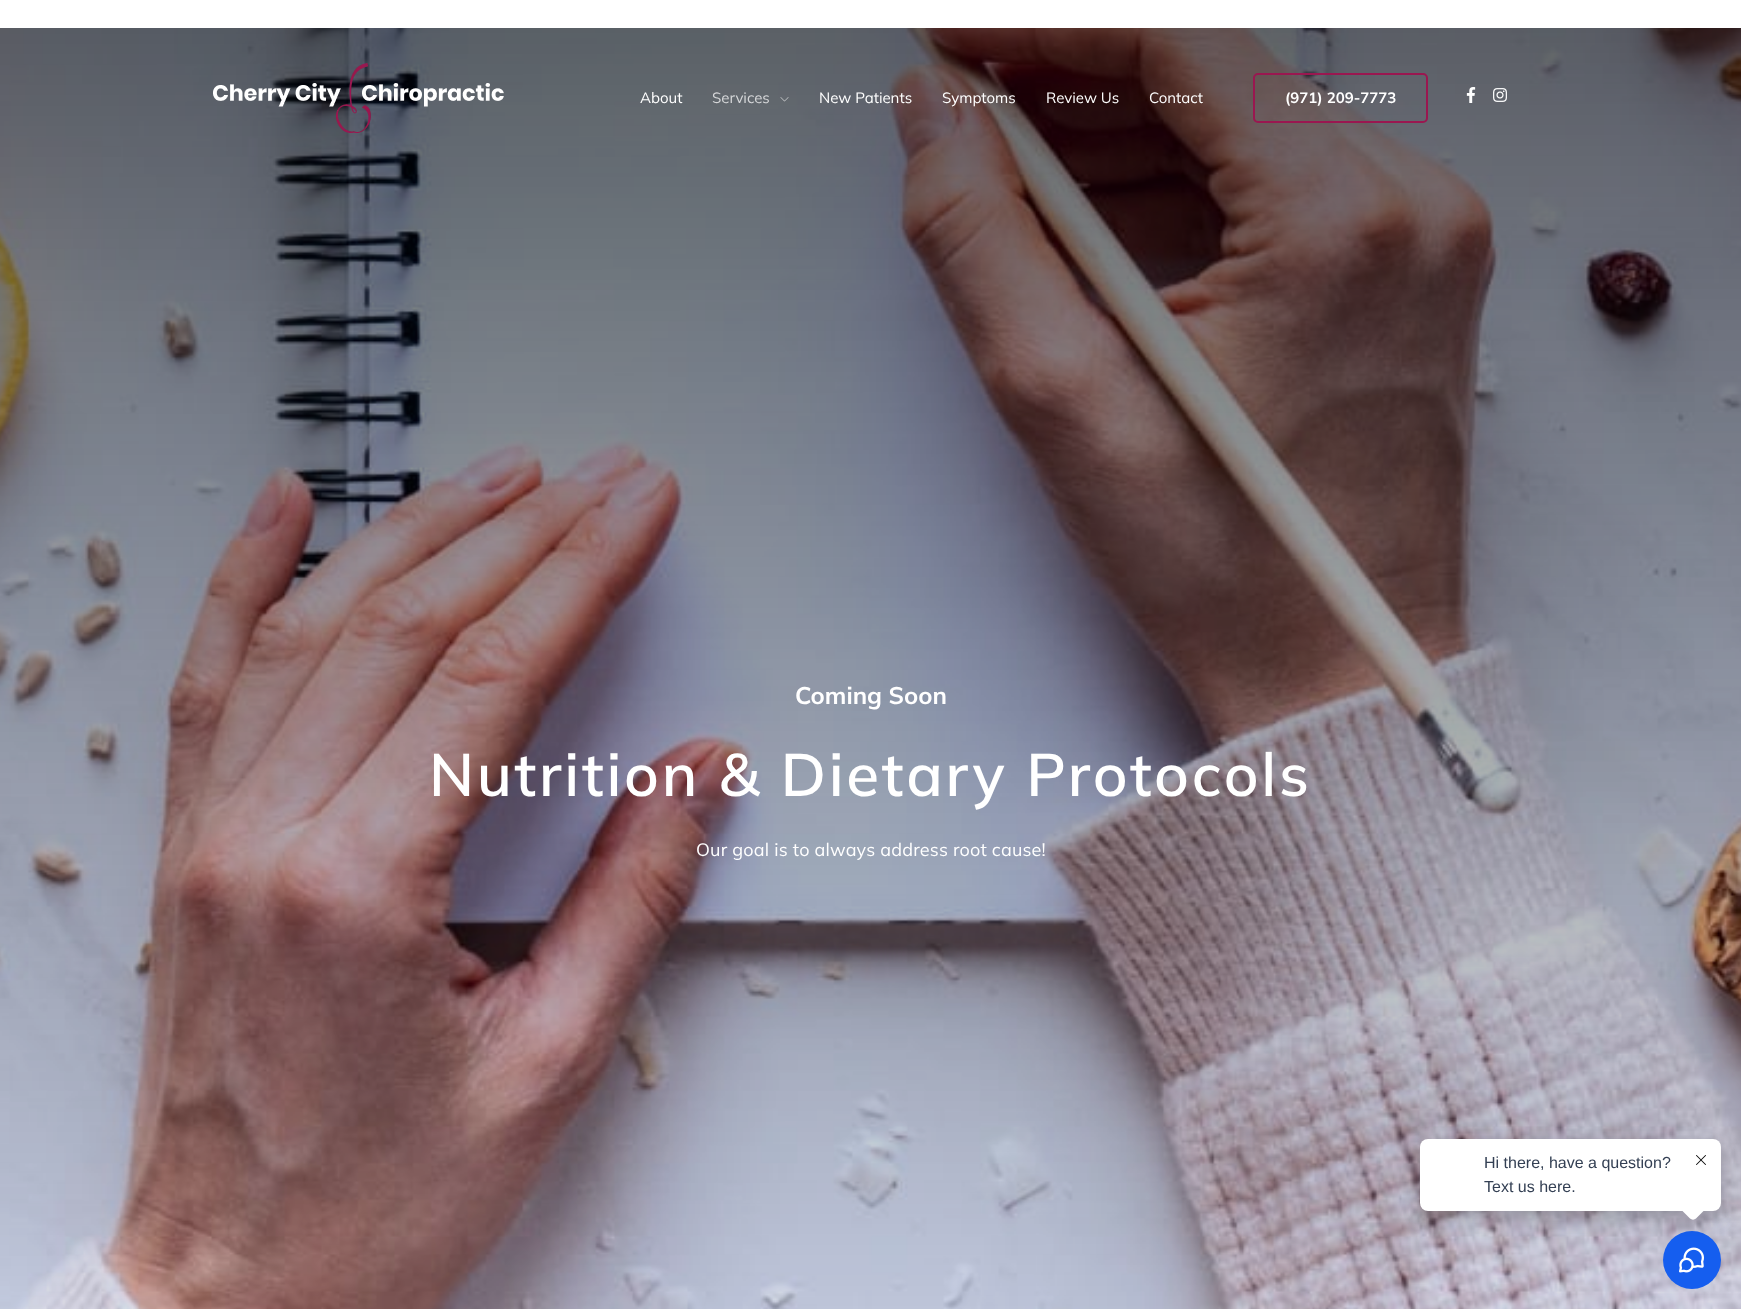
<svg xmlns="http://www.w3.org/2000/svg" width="1741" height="1309">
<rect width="100%" height="100%" fill="#fff"/>
<image x="0" y="28" width="1741" height="1281" href="media/5.png"/>
<image x="213" y="63" width="291" height="70" href="media/1.png"/>
<text x="640" y="103" style="font-family:Mulish;font-size:15px;fill:#fff">About</text>
<text x="712" y="103" style="font-family:Mulish;font-size:15px;fill:#d6d7d9">Services</text>
<image x="780" y="97" width="9" height="5" href="media/2.png"/>
<text x="819" y="103" style="font-family:Mulish;font-size:15px;fill:#fff">New Patients</text>
<text x="942" y="103" style="font-family:Mulish;font-size:15px;fill:#fff">Symptoms</text>
<text x="1046" y="103" style="font-family:Mulish;font-size:15px;fill:#fff">Review Us</text>
<text x="1149" y="103" style="font-family:Mulish;font-size:15px;fill:#fff">Contact</text>
<rect x="1254" y="74" width="173" height="48" rx="4" fill="none" stroke="#9a1750" stroke-width="2"/>
<text x="1285" y="103" style="font-family:Mulish;font-size:15px;font-weight:bold;fill:#fff">(971) 209-7773</text>
<image x="1466" y="87" width="10" height="16" href="media/3.png"/>
<image x="1493" y="88" width="14" height="14" href="media/4.png"/>
<text x="795" y="704" style="font-family:Mulish;font-size:24px;font-weight:bold;fill:#fff">Coming Soon</text>
<text x="429" y="796" style="font-family:Mulish;font-size:60px;font-weight:600;letter-spacing:2.7px;fill:#fff">Nutrition &amp; Dietary Protocols</text>
<text x="696" y="856" style="font-family:Mulish;font-size:18px;letter-spacing:0.2px;fill:#fff">Our goal is to always address root cause!</text>
<circle cx="1692" cy="1260" r="29" fill="#155eef"/>
<image x="1679" y="1247" width="25" height="26" href="media/7.png"/>
<rect x="1420" y="1147" width="301" height="72" rx="8" fill="#0000003d" filter="blur(10px)"/>
<rect x="1420" y="1139" width="301" height="72" rx="8" fill="#fff"/>
<text x="1484" y="1168" style="font-family:Liberation Sans;font-size:16px;fill:#344054">Hi there, have a question?</text>
<text x="1484" y="1192" style="font-family:Liberation Sans;font-size:16px;fill:#344054">Text us here.</text>
<path d="M1696 1195.5l8.5 8.5c1.5 1.5 1.5 4.5 0 6l-8.5 8.5c-1.5 1.5-4.5 1.5-6 0l-8.5-8.5c-1.5-1.5-1.5-4.5 0-6l8.5-8.5c1.5-1.5 4.5-1.5 6 0z" fill="#fff"/>
<image x="1696" y="1155" width="10" height="10" href="media/6.png"/>
</svg>
